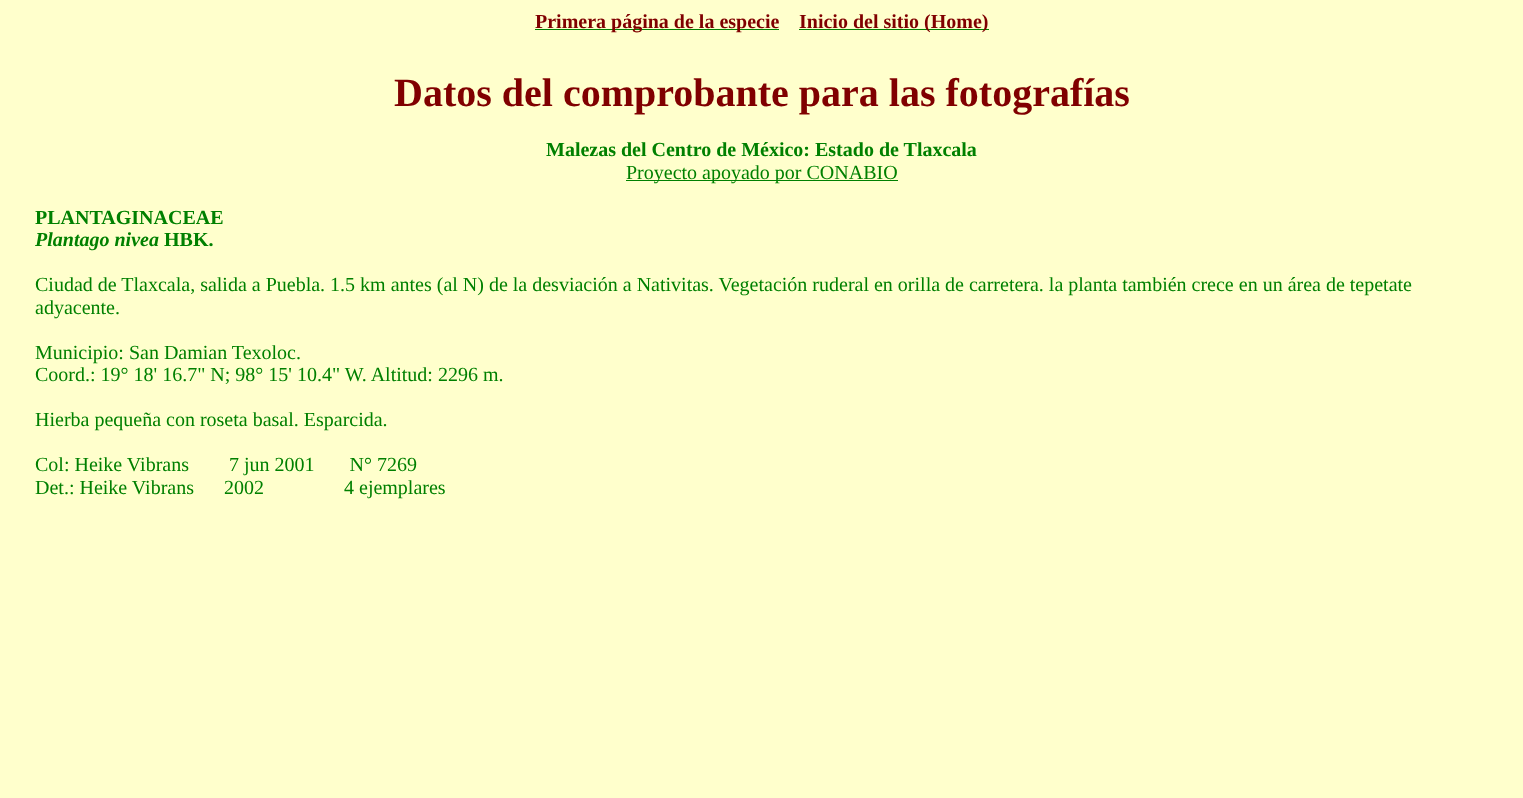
<svg xmlns="http://www.w3.org/2000/svg" width="1523" height="798">
<rect width="100%" height="100%" fill="#ffc"/>
<rect x="535" y="29" width="244" height="1" fill="#008000"/>
<text x="535" y="28" style="font-family:Liberation Serif;font-size:20px;font-weight:bold;fill:#800000">Primera página de la especie</text>
<rect x="799" y="29" width="190" height="1" fill="#008000"/>
<text x="799" y="28" style="font-family:Liberation Serif;font-size:20px;font-weight:bold;fill:#800000">Inicio del sitio (Home)</text>
<text x="394" y="106" style="font-family:Liberation Serif;font-size:40px;font-weight:bold;fill:#800000">Datos del comprobante para las fotografías</text>
<text x="546" y="156" style="font-family:Liberation Serif;font-size:20px;font-weight:bold;fill:#008000">Malezas del Centro de México: Estado de Tlaxcala</text>
<rect x="626" y="180" width="272" height="1" fill="#008000"/>
<text x="626" y="179" style="font-family:Liberation Serif;font-size:20px;fill:#008000">Proyecto apoyado por CONABIO</text>
<text x="35" y="224" style="font-family:Liberation Serif;font-size:20px;font-weight:bold;fill:#008000">PLANTAGINACEAE</text>
<text x="35" y="246" style="font-family:Liberation Serif;font-size:20px;font-weight:bold;font-style:italic;fill:#008000">Plantago nivea</text>
<text x="164" y="246" style="font-family:Liberation Serif;font-size:20px;font-weight:bold;fill:#008000">HBK.</text>
<text x="35" y="291" style="font-family:Liberation Serif;font-size:20px;fill:#008000">Ciudad de Tlaxcala, salida a Puebla. 1.5 km antes (al N) de la desviación a Nativitas. Vegetación ruderal en orilla de carretera. la planta también crece en un área de tepetate</text>
<text x="35" y="314" style="font-family:Liberation Serif;font-size:20px;fill:#008000">adyacente.</text>
<text x="35" y="359" style="font-family:Liberation Serif;font-size:20px;fill:#008000">Municipio: San Damian Texoloc.</text>
<text x="35" y="381" style="font-family:Liberation Serif;font-size:20px;fill:#008000">Coord.: 19° 18' 16.7" N; 98° 15' 10.4" W. Altitud: 2296 m.</text>
<text x="35" y="426" style="font-family:Liberation Serif;font-size:20px;fill:#008000">Hierba pequeña con roseta basal. Esparcida.</text>
<text x="35" y="471" style="font-family:Liberation Serif;font-size:20px;fill:#008000" xml:space="preserve">Col: Heike Vibrans        7 jun 2001       N° 7269</text>
<text x="35" y="494" style="font-family:Liberation Serif;font-size:20px;fill:#008000">Det.: Heike Vibrans</text>
<text x="224" y="494" style="font-family:Liberation Serif;font-size:20px;fill:#008000" xml:space="preserve">2002                4 ejemplares</text>
</svg>
